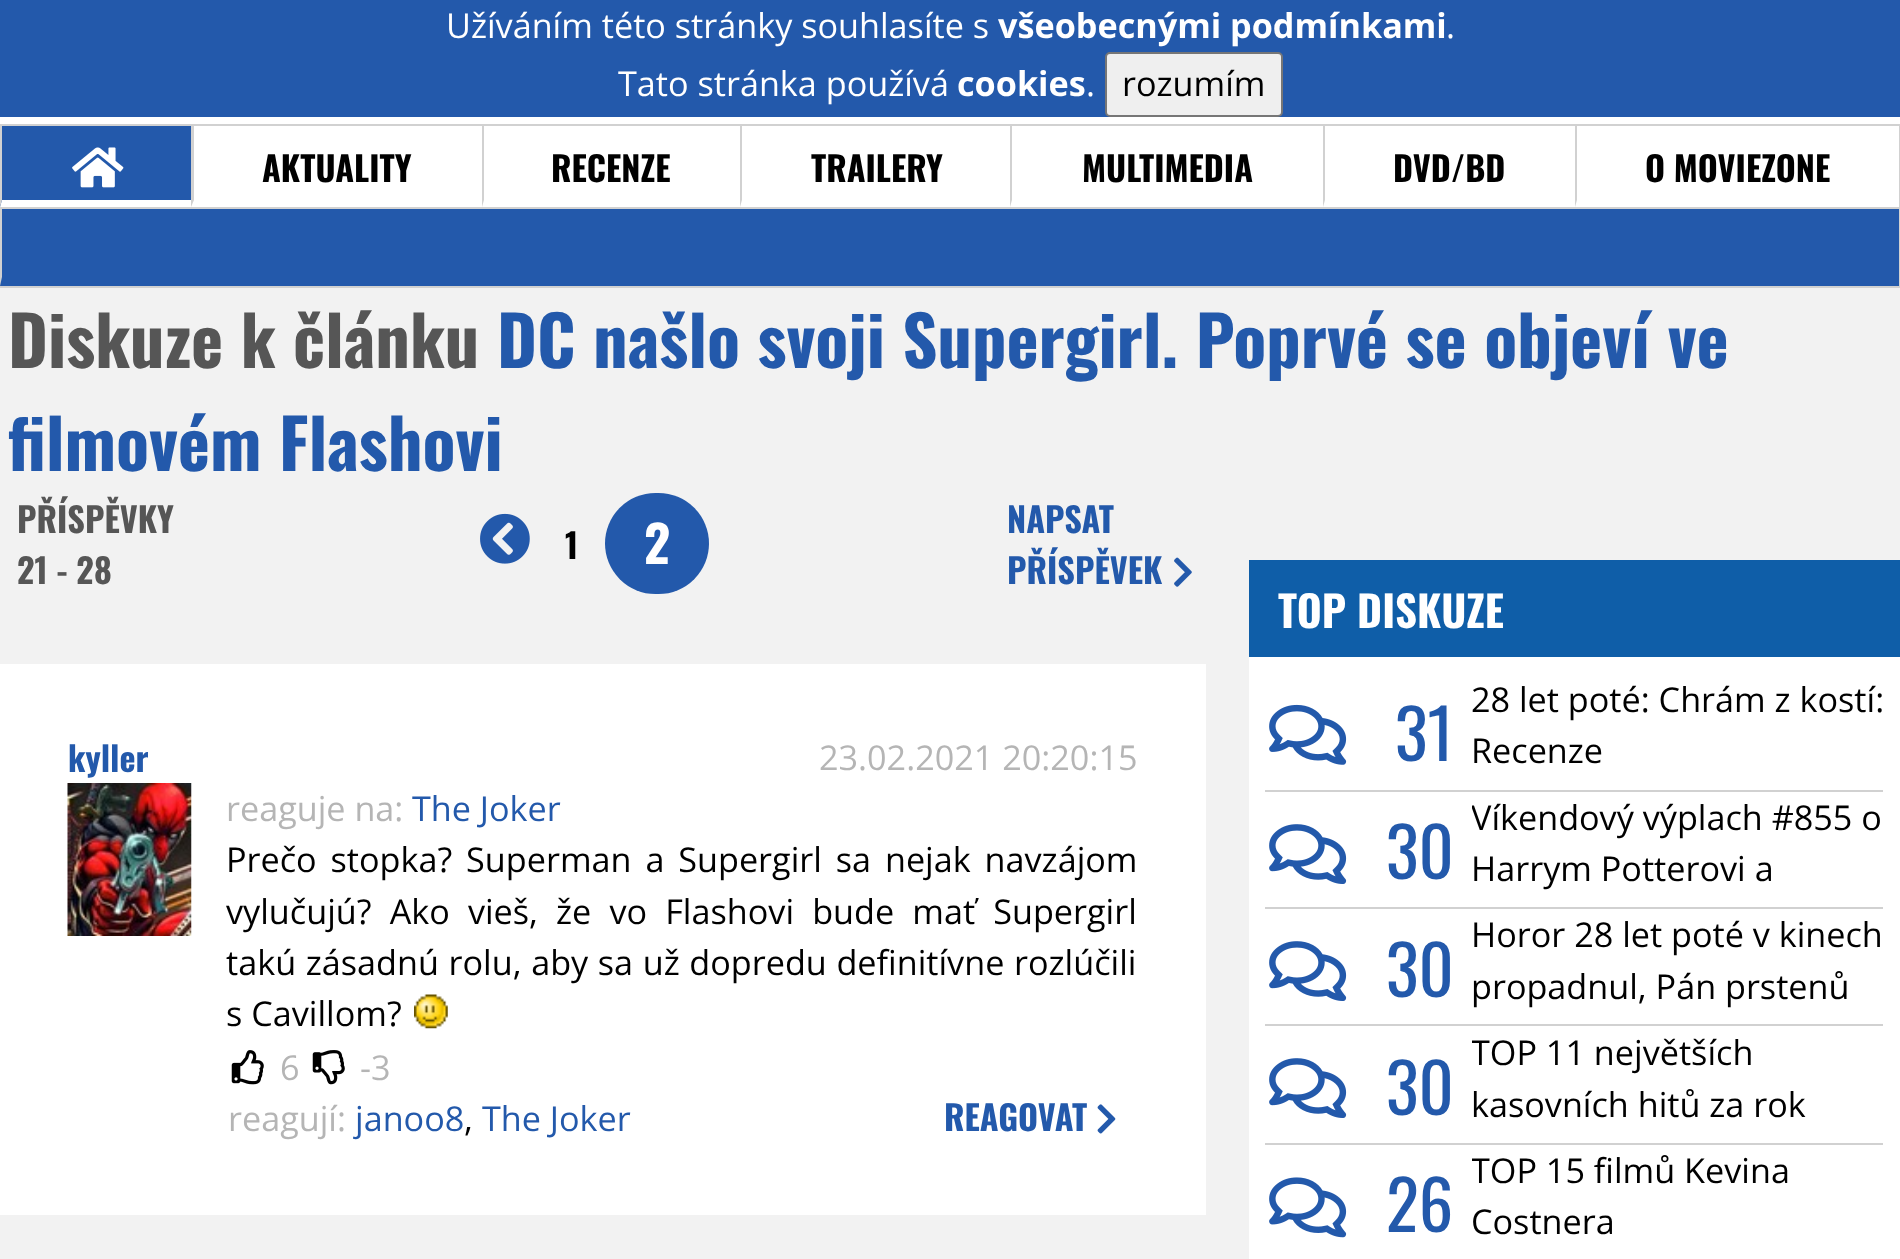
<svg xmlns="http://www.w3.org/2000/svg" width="1900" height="1259">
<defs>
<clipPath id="clip1"><rect x="1472" y="792" width="411" height="101"/></clipPath>
<clipPath id="clip2"><rect x="1472" y="1026" width="411" height="104"/></clipPath>
<clipPath id="clip3"><rect x="1472" y="1145" width="411" height="102"/></clipPath>
</defs>
<rect width="100%" height="100%" fill="#f2f2f2"/>
<rect width="1900" height="117" fill="#2359ab"/>
<text x="446" y="38" style="font-family:Open Sans;font-size:34.2px;fill:#fff">Užíváním této stránky souhlasíte s</text>
<text x="998" y="38" style="font-family:Open Sans;font-size:34.2px;font-weight:bold;fill:#fff">všeobecnými podmínkami</text>
<text x="1446" y="38" style="font-family:Open Sans;font-size:34.2px;fill:#fff">.</text>
<text x="618" y="96" style="font-family:Open Sans;font-size:34.2px;fill:#fff">Tato stránka používá</text>
<text x="957" y="96" style="font-family:Open Sans;font-size:34.2px;font-weight:bold;fill:#fff">cookies</text>
<text x="1086" y="96" style="font-family:Open Sans;font-size:34.2px;fill:#fff">.</text>
<rect x="1106" y="53" width="176" height="63" rx="4" fill="#efefef" stroke="#767676" stroke-width="2"/>
<text x="1122" y="96" style="font-family:Open Sans;font-size:34.2px;fill:#000">rozumím</text>
<rect y="117" width="1900" height="90" fill="#fff"/>
<rect y="124" width="1900" height="2" fill="#d1d1d1"/>
<rect x="1899" y="124" width="1" height="164" fill="#d1d1d1"/>
<rect y="207" width="1900" height="2" fill="#d1d1d1"/>
<rect y="126" width="191" height="81" fill="#2359ab"/>
<path d="M191 207h-191l2-7h189z" fill="#fff"/>
<path d="M0 207v-81h2v74z" fill="#d1d1d1"/>
<image x="72" y="147" width="52" height="41" href="media/1.png"/>
<path d="M191 207v-81h3v74z" fill="#d1d1d1"/>
<text x="262" y="182" style="font-family:Oswald;font-size:34.2px;font-weight:bold;fill:#000">AKTUALITY</text>
<path d="M482 207v-81h2v74z" fill="#d1d1d1"/>
<text x="551" y="182" style="font-family:Oswald;font-size:34.2px;font-weight:bold;fill:#000">RECENZE</text>
<path d="M740 207v-81h2v74z" fill="#d1d1d1"/>
<text x="811" y="182" style="font-family:Oswald;font-size:34.2px;font-weight:bold;fill:#000">TRAILERY</text>
<path d="M1010 207v-81h2v74z" fill="#d1d1d1"/>
<text x="1082" y="182" style="font-family:Oswald;font-size:34.2px;font-weight:bold;fill:#000">MULTIMEDIA</text>
<path d="M1323 207v-81h2v74z" fill="#d1d1d1"/>
<text x="1393" y="182" style="font-family:Oswald;font-size:34.2px;font-weight:bold;fill:#000">DVD/BD</text>
<path d="M1575 207v-81h2v74z" fill="#d1d1d1"/>
<text x="1645" y="182" style="font-family:Oswald;font-size:34.2px;font-weight:bold;fill:#000">O MOVIEZONE</text>
<rect y="209" width="1899" height="77" fill="#2359ab"/>
<rect y="286" width="1900" height="2" fill="#d1d1d1"/>
<path d="M0 286v-77h2v68z" fill="#d1d1d1"/>
<text x="8" y="368" style="font-family:Oswald;font-size:68.4px;font-weight:bold;fill:#565656">Diskuze k článku</text>
<text x="497" y="368" style="font-family:Oswald;font-size:68.4px;font-weight:bold;fill:#2359ab">DC našlo svoji Supergirl. Poprvé se objeví ve</text>
<text x="8" y="471" style="font-family:Oswald;font-size:68.4px;font-weight:bold;fill:#2359ab">filmovém Flashovi</text>
<text x="17" y="533" style="font-family:Oswald;font-size:34.2px;font-weight:bold;fill:#565656">PŘÍSPĚVKY</text>
<text x="17" y="584" style="font-family:Oswald;font-size:34.2px;font-weight:bold;fill:#565656">21 - 28</text>
<image x="480" y="513" width="50" height="51" href="media/2.png"/>
<text x="565" y="559" style="font-family:Oswald;font-size:34.2px;font-weight:bold;fill:#000">1</text>
<rect x="605" y="493" width="104" height="101" rx="50.5" fill="#2359ab"/>
<text x="644" y="564" style="font-family:Oswald;font-size:51px;font-weight:bold;fill:#fff">2</text>
<text x="1007" y="533" style="font-family:Oswald;font-size:34.2px;font-weight:bold;fill:#2359ab">NAPSAT</text>
<text x="1007" y="584" style="font-family:Oswald;font-size:34.2px;font-weight:bold;fill:#2359ab">PŘÍSPĚVEK</text>
<image x="1174" y="557" width="18" height="30" href="media/3.png"/>
<rect y="664" width="1206" height="551" fill="#fff"/>
<text x="68" y="772" style="font-family:Oswald;font-size:34.2px;font-weight:bold;fill:#2359ab">kyller</text>
<image x="67" y="783" width="125" height="153" href="media/4.png"/>
<text x="819" y="770" style="font-family:Open Sans;font-size:34.2px;fill:#b5b5b5">23.02.2021 20:20:15</text>
<text x="226" y="821" style="font-family:Open Sans;font-size:34.2px;fill:#b5b5b5">reaguje na:</text>
<text x="412" y="821" style="font-family:Open Sans;font-size:34.2px;fill:#2359ab">The Joker</text>
<text x="226" y="872" word-spacing="5" style="font-family:Open Sans;font-size:34.2px;fill:#000">Prečo stopka? Superman a Supergirl sa nejak navzájom</text>
<text x="226" y="924" word-spacing="9.25" style="font-family:Open Sans;font-size:34.2px;fill:#000">vylučujú? Ako vieš, že vo Flashovi bude mať Supergirl</text>
<text x="226" y="975" word-spacing="0.75" style="font-family:Open Sans;font-size:34.2px;fill:#000">takú zásadnú rolu, aby sa už dopredu definitívne rozlúčili</text>
<text x="226" y="1026" style="font-family:Open Sans;font-size:34.2px;fill:#000">s Cavillom?</text>
<image x="414" y="994" width="34" height="35" href="media/5.png"/>
<image x="231" y="1050" width="33" height="35" href="media/6.png"/>
<text x="280" y="1080" style="font-family:Open Sans;font-size:34.2px;fill:#b5b5b5">6</text>
<image x="312" y="1050" width="33" height="35" href="media/7.png"/>
<text x="360" y="1080" style="font-family:Open Sans;font-size:34.2px;fill:#b5b5b5">-3</text>
<text x="228" y="1131" style="font-family:Open Sans;font-size:34.2px;fill:#b5b5b5">reagují:</text>
<text x="355" y="1131" style="font-family:Open Sans;font-size:34.2px;fill:#2359ab">janoo8</text>
<text x="464" y="1131" style="font-family:Open Sans;font-size:34.2px;fill:#000">,</text>
<text x="482" y="1131" style="font-family:Open Sans;font-size:34.2px;fill:#2359ab">The Joker</text>
<text x="944" y="1131" style="font-family:Oswald;font-size:34.2px;font-weight:bold;fill:#2359ab">REAGOVAT</text>
<image x="1097" y="1104" width="19" height="30" href="media/8.png"/>
<rect x="1249" y="657" width="651" height="602" fill="#fff"/>
<rect x="1249" y="560" width="651" height="97" fill="#0f5ea8"/>
<text x="1278" y="628" style="font-family:Oswald;font-size:42.75px;font-weight:bold;fill:#fff">TOP DISKUZE</text>
<rect x="1265" y="790" width="618" height="2" fill="#d1d1d1"/>
<image x="1269" y="704" width="78" height="61" href="media/9.png"/>
<text x="1395" y="761" style="font-family:Oswald;font-size:68.4px;fill:#2359ab">31</text>
<text x="1471" y="712" style="font-family:Open Sans;font-size:34.2px;fill:#000">28 let poté: Chrám z kostí:</text>
<text x="1471" y="763" style="font-family:Open Sans;font-size:34.2px;fill:#000">Recenze</text>
<rect x="1265" y="907" width="618" height="2" fill="#d1d1d1"/>
<image x="1269" y="824" width="78" height="60" href="media/10.png"/>
<text x="1386" y="879" style="font-family:Oswald;font-size:68.4px;fill:#2359ab">30</text>
<g clip-path="url(#clip1)">
<text x="1471" y="830" style="font-family:Open Sans;font-size:34.2px;fill:#000">Víkendový výplach #855 o</text>
</g>
<text x="1471" y="881" style="font-family:Open Sans;font-size:34.2px;fill:#000">Harrym Potterovi a</text>
<rect x="1265" y="1024" width="618" height="2" fill="#d1d1d1"/>
<image x="1269" y="941" width="78" height="60" href="media/10.png"/>
<text x="1386" y="997" style="font-family:Oswald;font-size:68.4px;fill:#2359ab">30</text>
<text x="1471" y="947" style="font-family:Open Sans;font-size:34.2px;fill:#000">Horor 28 let poté v kinech</text>
<text x="1471" y="999" style="font-family:Open Sans;font-size:34.2px;fill:#000">propadnul, Pán prstenů</text>
<rect x="1265" y="1143" width="618" height="2" fill="#d1d1d1"/>
<image x="1269" y="1058" width="78" height="60" href="media/10.png"/>
<text x="1386" y="1115" style="font-family:Oswald;font-size:68.4px;fill:#2359ab">30</text>
<g clip-path="url(#clip2)">
<text x="1471" y="1065" style="font-family:Open Sans;font-size:34.2px;fill:#000">TOP 11 největších</text>
</g>
<text x="1471" y="1117" style="font-family:Open Sans;font-size:34.2px;fill:#000">kasovních hitů za rok</text>
<image x="1269" y="1177" width="78" height="61" href="media/11.png"/>
<text x="1386" y="1232" style="font-family:Oswald;font-size:68.4px;fill:#2359ab">26</text>
<g clip-path="url(#clip3)">
<text x="1471" y="1183" style="font-family:Open Sans;font-size:34.2px;fill:#000">TOP 15 filmů Kevina</text>
</g>
<text x="1471" y="1234" style="font-family:Open Sans;font-size:34.2px;fill:#000">Costnera</text>
</svg>
